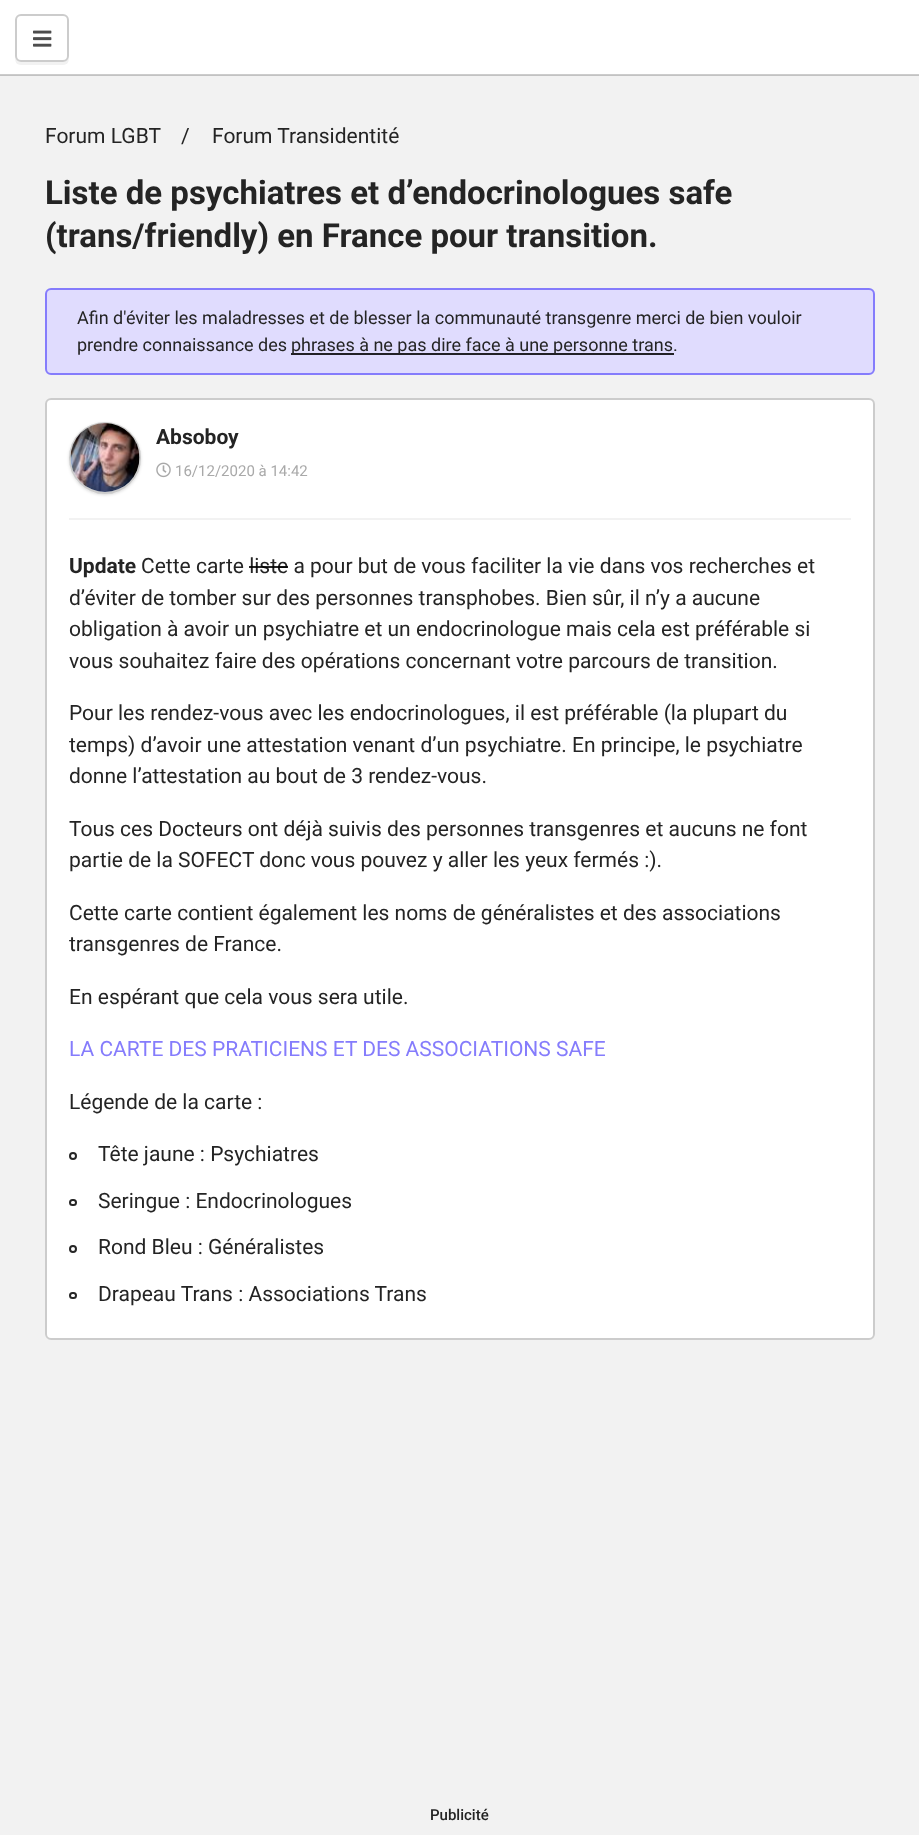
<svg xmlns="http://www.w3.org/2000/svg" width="919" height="1835">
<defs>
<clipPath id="clip1"><path d="M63 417h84v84h-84zm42 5c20 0 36 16 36 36c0 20-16 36-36 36c-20 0-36-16-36-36c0-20 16-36 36-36z" clip-rule="evenodd"/></clipPath>
</defs>
<rect width="100%" height="100%" fill="#f2f2f2"/>
<rect y="75" width="919" height="1" fill="#c2c2c2"/>
<rect width="919" height="74" fill="#fff"/>
<rect y="74" width="919" height="1" fill="#ccc"/>
<path d="M15 56c0 10 3 9 13 9h28c10 0 13 1 13-9c0 3-3 6-6 6h-42c-3 0-6-3-6-6z" fill="#f2f2f2"/>
<rect x="16" y="15" width="52" height="46" rx="5" fill="#fff" stroke="#ccc" stroke-width="2"/>
<image x="33" y="30" width="19" height="17" href="media/1.png"/>
<text x="45" y="143" style="font-family:Roboto;font-size:21px;fill:#242424">Forum LGBT</text>
<text x="181" y="143" style="font-family:Roboto;font-size:21px;fill:#242424">/</text>
<text x="212" y="143" style="font-family:Roboto;font-size:21px;fill:#242424">Forum Transidentité</text>
<text x="45" y="204" style="font-family:Roboto;font-size:33px;font-weight:bold;fill:#242424">Liste de psychiatres et d’endocrinologues safe</text>
<text x="45" y="247" style="font-family:Roboto;font-size:33px;font-weight:bold;fill:#242424">(trans/friendly) en France pour transition.</text>
<rect x="46" y="289" width="828" height="85" rx="5" fill="#e0dcfe" stroke="#857cfc" stroke-width="2"/>
<text x="77" y="324" style="font-family:Roboto;font-size:18px;fill:#242424">Afin d'éviter les maladresses et de blesser la communauté transgenre merci de bien vouloir</text>
<text x="77" y="351" style="font-family:Roboto;font-size:18px;fill:#242424">prendre connaissance des</text>
<rect x="291" y="353" width="383" height="2" fill="#222126"/>
<text x="291" y="351" style="font-family:Roboto;font-size:18px;fill:#242424">phrases à ne pas dire face à une personne trans</text>
<text x="673" y="351" style="font-family:Roboto;font-size:18px;fill:#242424">.</text>
<rect x="45" y="398" width="830" height="942" rx="6" fill="#fff"/>
<rect x="46" y="399" width="828" height="940" rx="5" fill="none" stroke="#00000033" stroke-width="2"/>
<g clip-path="url(#clip1)">
<rect x="69" y="423" width="72" height="72" rx="36" fill="#00000026" filter="blur(1.5px)"/>
</g>
<circle cx="105" cy="458" r="35" fill="none" stroke="#00000033" stroke-width="2"/>
<image x="70" y="423" width="70" height="69" href="media/2.png"/>
<text x="156" y="444" style="font-family:Roboto;font-size:21px;font-weight:bold;fill:#242424">Absoboy</text>
<image x="156" y="462" width="15" height="16" href="media/3.png"/>
<text x="175" y="476" style="font-family:Roboto;font-size:15px;fill:#a9a9a9">16/12/2020 à 14:42</text>
<rect x="69" y="518" width="782" height="2" fill="#f2f2f2"/>
<text x="69" y="573" style="font-family:Roboto;font-size:21px;font-weight:bold;fill:#242424">Update</text>
<text x="141" y="573" style="font-family:Roboto;font-size:21px;fill:#242424">Cette carte liste a pour but de vous faciliter la vie dans vos recherches et</text>
<rect x="249" y="566" width="39" height="2" fill="#000000d9"/>
<text x="69" y="605" style="font-family:Roboto;font-size:21px;fill:#242424">d’éviter de tomber sur des personnes transphobes. Bien sûr, il n’y a aucune</text>
<text x="69" y="636" style="font-family:Roboto;font-size:21px;fill:#242424">obligation à avoir un psychiatre et un endocrinologue mais cela est préférable si</text>
<text x="69" y="668" style="font-family:Roboto;font-size:21px;fill:#242424">vous souhaitez faire des opérations concernant votre parcours de transition.</text>
<text x="69" y="720" style="font-family:Roboto;font-size:21px;fill:#242424">Pour les rendez-vous avec les endocrinologues, il est préférable (la plupart du</text>
<text x="69" y="752" style="font-family:Roboto;font-size:21px;fill:#242424">temps) d’avoir une attestation venant d’un psychiatre. En principe, le psychiatre</text>
<text x="69" y="783" style="font-family:Roboto;font-size:21px;fill:#242424">donne l’attestation au bout de 3 rendez-vous.</text>
<text x="69" y="836" style="font-family:Roboto;font-size:21px;fill:#242424">Tous ces Docteurs ont déjà suivis des personnes transgenres et aucuns ne font</text>
<text x="69" y="867" style="font-family:Roboto;font-size:21px;fill:#242424">partie de la SOFECT donc vous pouvez y aller les yeux fermés :).</text>
<text x="69" y="920" style="font-family:Roboto;font-size:21px;fill:#242424">Cette carte contient également les noms de généralistes et des associations</text>
<text x="69" y="951" style="font-family:Roboto;font-size:21px;fill:#242424">transgenres de France.</text>
<text x="69" y="1004" style="font-family:Roboto;font-size:21px;fill:#242424">En espérant que cela vous sera utile.</text>
<text x="69" y="1056" style="font-family:Roboto;font-size:21px;fill:#857cfc">LA CARTE DES PRATICIENS ET DES ASSOCIATIONS SAFE</text>
<text x="69" y="1109" style="font-family:Roboto;font-size:21px;fill:#242424">Légende de la carte :</text>
<circle cx="73" cy="1156" r="3" fill="none" stroke="#262626" stroke-width="2"/>
<text x="98" y="1161" style="font-family:Roboto;font-size:21px;fill:#242424">Tête jaune : Psychiatres</text>
<rect x="70" y="1200" width="6" height="5" rx="2.5" fill="none" stroke="#262626" stroke-width="2"/>
<text x="98" y="1208" style="font-family:Roboto;font-size:21px;fill:#242424">Seringue : Endocrinologues</text>
<circle cx="73" cy="1249" r="3" fill="none" stroke="#262626" stroke-width="2"/>
<text x="98" y="1254" style="font-family:Roboto;font-size:21px;fill:#242424">Rond Bleu : Généralistes</text>
<rect x="70" y="1293" width="6" height="5" rx="2.5" fill="none" stroke="#262626" stroke-width="2"/>
<text x="98" y="1301" style="font-family:Roboto;font-size:21px;fill:#242424">Drapeau Trans : Associations Trans</text>
<text x="430" y="1820" style="font-family:Roboto;font-size:15px;font-weight:500;fill:#242424">Publicité</text>
</svg>
